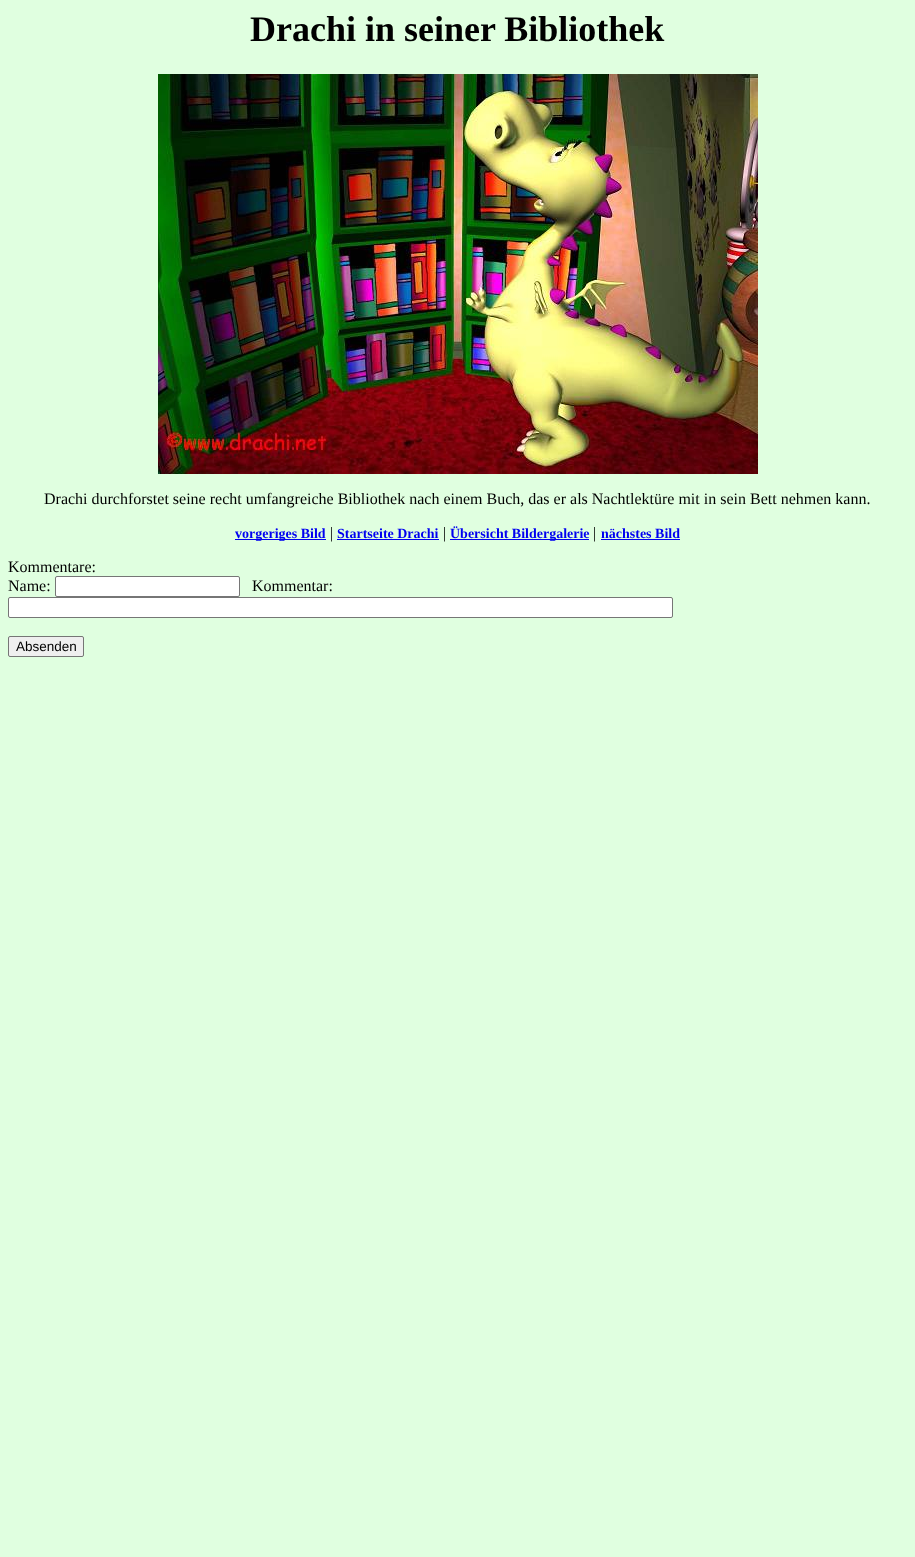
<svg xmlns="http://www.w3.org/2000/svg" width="915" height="1557">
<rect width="100%" height="100%" fill="#e0ffe0"/>
<text x="250" y="41" style="font-family:Liberation Serif;font-size:36px;font-weight:bold;fill:#000">Drachi in seiner Bibliothek</text>
<image x="158" y="74" width="600" height="400" href="media/1.png"/>
<text x="44" y="504" style="font-family:Liberation Serif;font-size:16px;fill:#000">Drachi durchforstet seine recht umfangreiche Bibliothek nach einem Buch, das er als Nachtlektüre mit in sein Bett nehmen kann.</text>
<rect x="235" y="539" width="91" height="1" fill="#0000f0"/>
<text x="235" y="538" style="font-family:Liberation Serif;font-size:14px;font-weight:bold;fill:#0000f0">vorgeriges Bild</text>
<text x="330" y="538" style="font-family:Liberation Serif;font-size:16px;fill:#000">|</text>
<text x="337" y="538" style="font-family:Liberation Serif;font-size:14px;font-weight:bold;fill:#0000f0">Startseite Drachi</text>
<rect x="337" y="539" width="102" height="1" fill="#0000f0"/>
<text x="443" y="538" style="font-family:Liberation Serif;font-size:16px;fill:#000">|</text>
<rect x="450" y="539" width="139" height="1" fill="#0000f0"/>
<text x="450" y="538" style="font-family:Liberation Serif;font-size:14px;font-weight:bold;fill:#0000f0">Übersicht Bildergalerie</text>
<text x="593" y="538" style="font-family:Liberation Serif;font-size:16px;fill:#000">|</text>
<text x="601" y="538" style="font-family:Liberation Serif;font-size:14px;font-weight:bold;fill:#0000f0">nächstes Bild</text>
<rect x="601" y="539" width="79" height="1" fill="#0000f0"/>
<text x="8" y="572" style="font-family:Liberation Serif;font-size:16px;fill:#000">Kommentare:</text>
<text x="8" y="591" style="font-family:Liberation Serif;font-size:16px;fill:#000">Name:</text>
<rect x="55.5" y="576.5" width="184" height="20" rx="1.5" fill="#fff" stroke="#767676"/>
<text x="252" y="591" style="font-family:Liberation Serif;font-size:16px;fill:#000">Kommentar:</text>
<rect x="8.5" y="597.5" width="664" height="20" rx="1.5" fill="#fff" stroke="#767676"/>
<rect x="8.5" y="636.5" width="75" height="20" rx="1.5" fill="#efefef" stroke="#767676"/>
<text x="16" y="651" style="font-family:Liberation Sans;font-size:13.5px;fill:#000">Absenden</text>
</svg>
